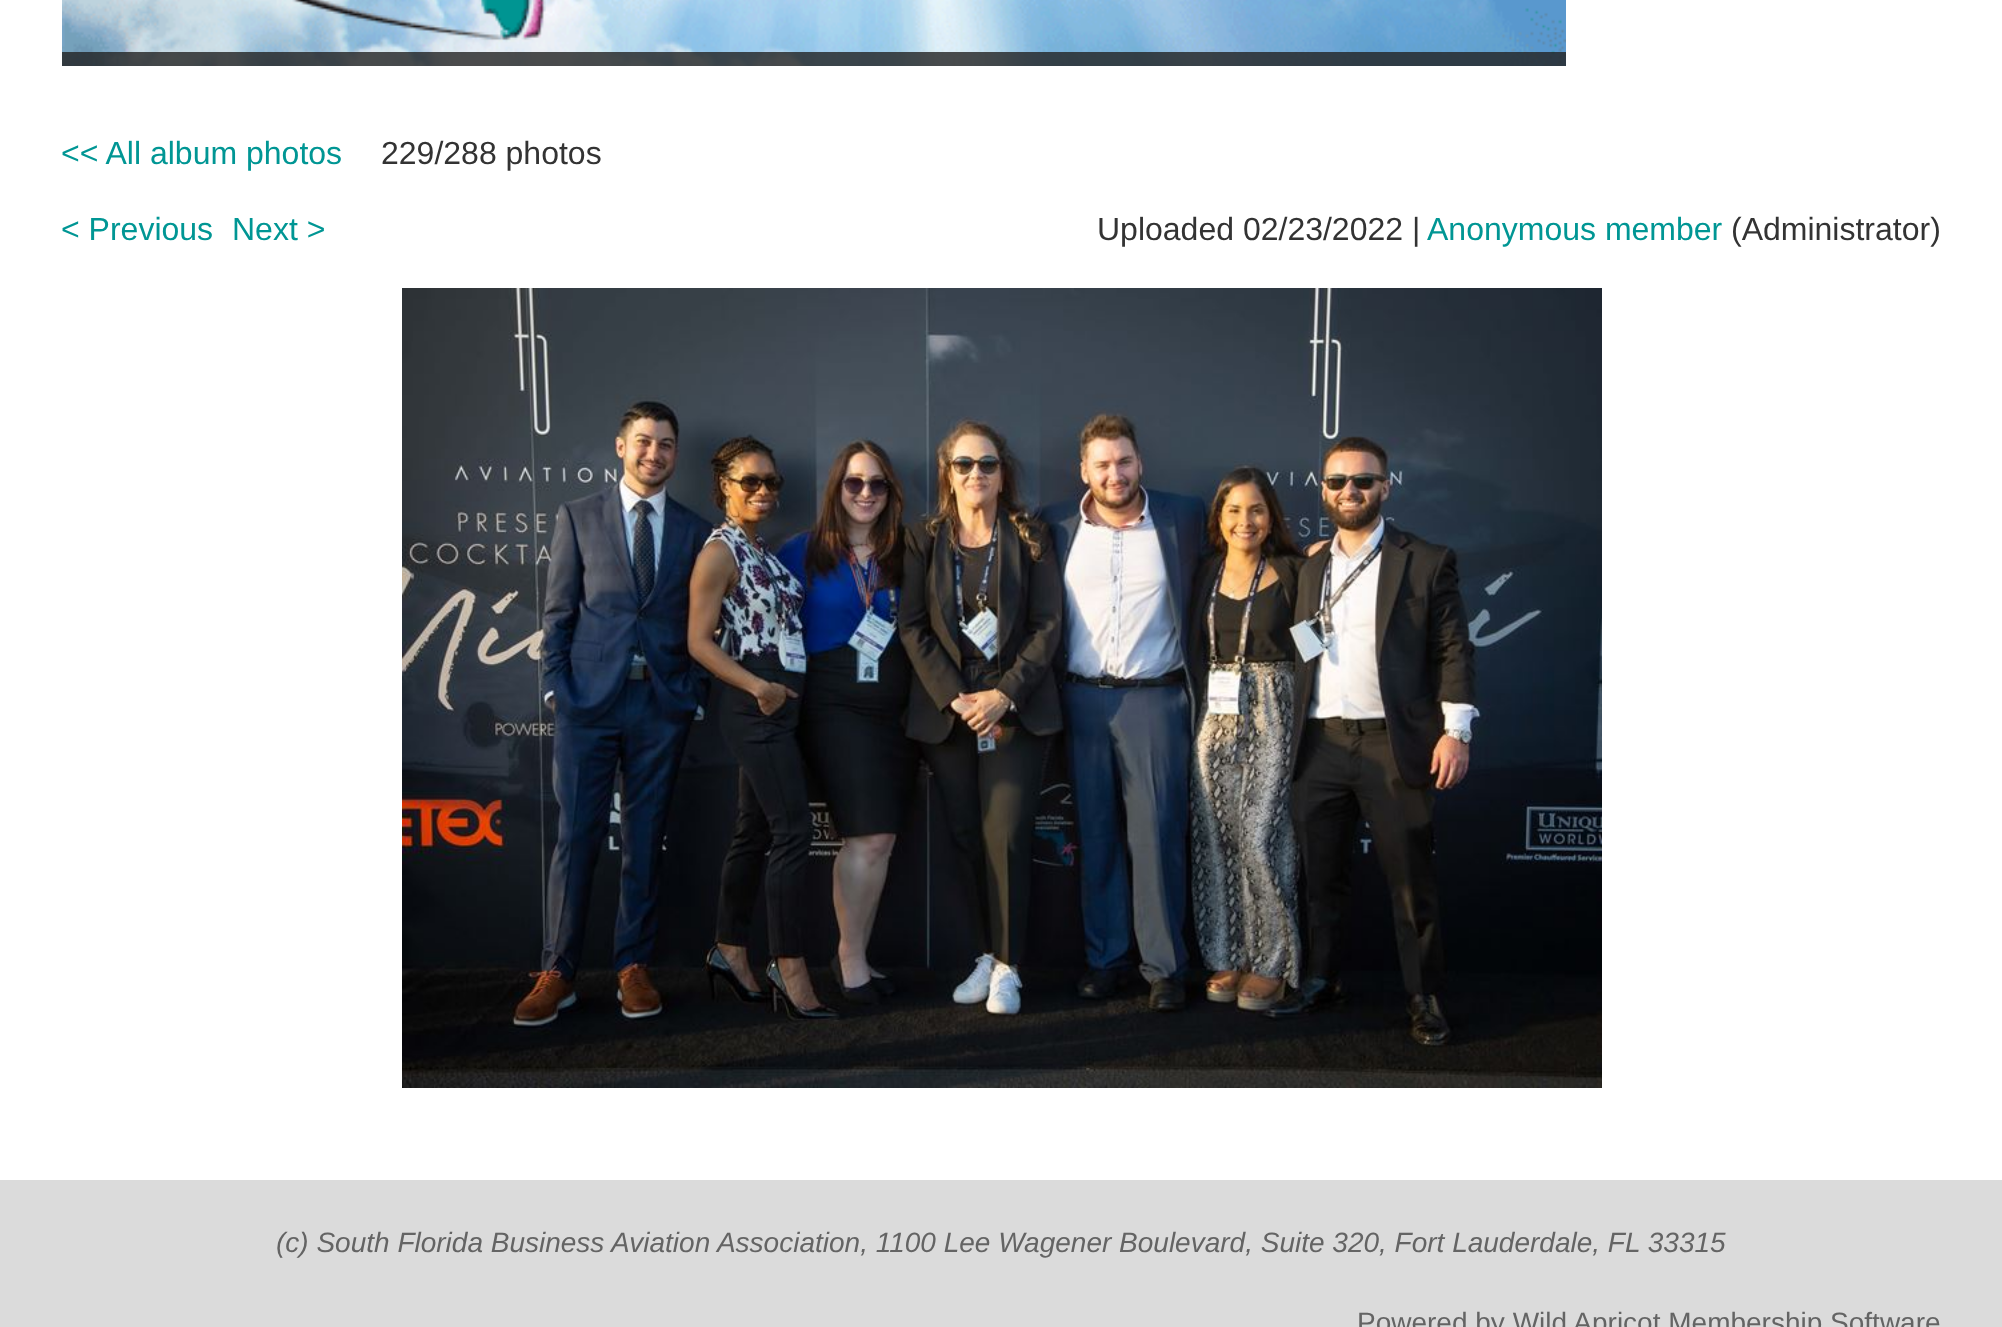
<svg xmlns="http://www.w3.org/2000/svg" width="2002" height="1327">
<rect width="100%" height="100%" fill="#fff"/>
<image x="62" y="0" width="1504" height="66" href="media/1.png"/>
<rect x="62" y="52" width="1504" height="14" fill="#222222cc"/>
<text x="61" y="164" style="font-family:Liberation Sans;font-size:32px;fill:#009694">&lt;&lt; All album photos</text>
<text x="381" y="164" style="font-family:Liberation Sans;font-size:32px;fill:#333">229/288 photos</text>
<text x="61" y="240" style="font-family:Liberation Sans;font-size:32px;fill:#009694">&lt; Previous</text>
<text x="232" y="240" style="font-family:Liberation Sans;font-size:32px;fill:#009694">Next &gt;</text>
<text x="1097" y="240" style="font-family:Liberation Sans;font-size:32px;fill:#333">Uploaded 02/23/2022 |</text>
<text x="1427" y="240" style="font-family:Liberation Sans;font-size:32px;fill:#009694">Anonymous member</text>
<text x="1731" y="240" style="font-family:Liberation Sans;font-size:32px;fill:#333">(Administrator)</text>
<image x="402" y="288" width="1200" height="800" href="media/2.png"/>
<rect y="1180" width="2002" height="147" fill="#dbdbdb"/>
<text x="276" y="1252" style="font-family:Liberation Sans;font-size:28px;font-style:italic;fill:#646464">(c) South Florida Business Aviation Association, 1100 Lee Wagener Boulevard, Suite 320, Fort Lauderdale, FL 33315</text>
<text x="1357" y="1332" style="font-family:Liberation Sans;font-size:28px;fill:#646464">Powered by Wild Apricot Membership Software</text>
</svg>
